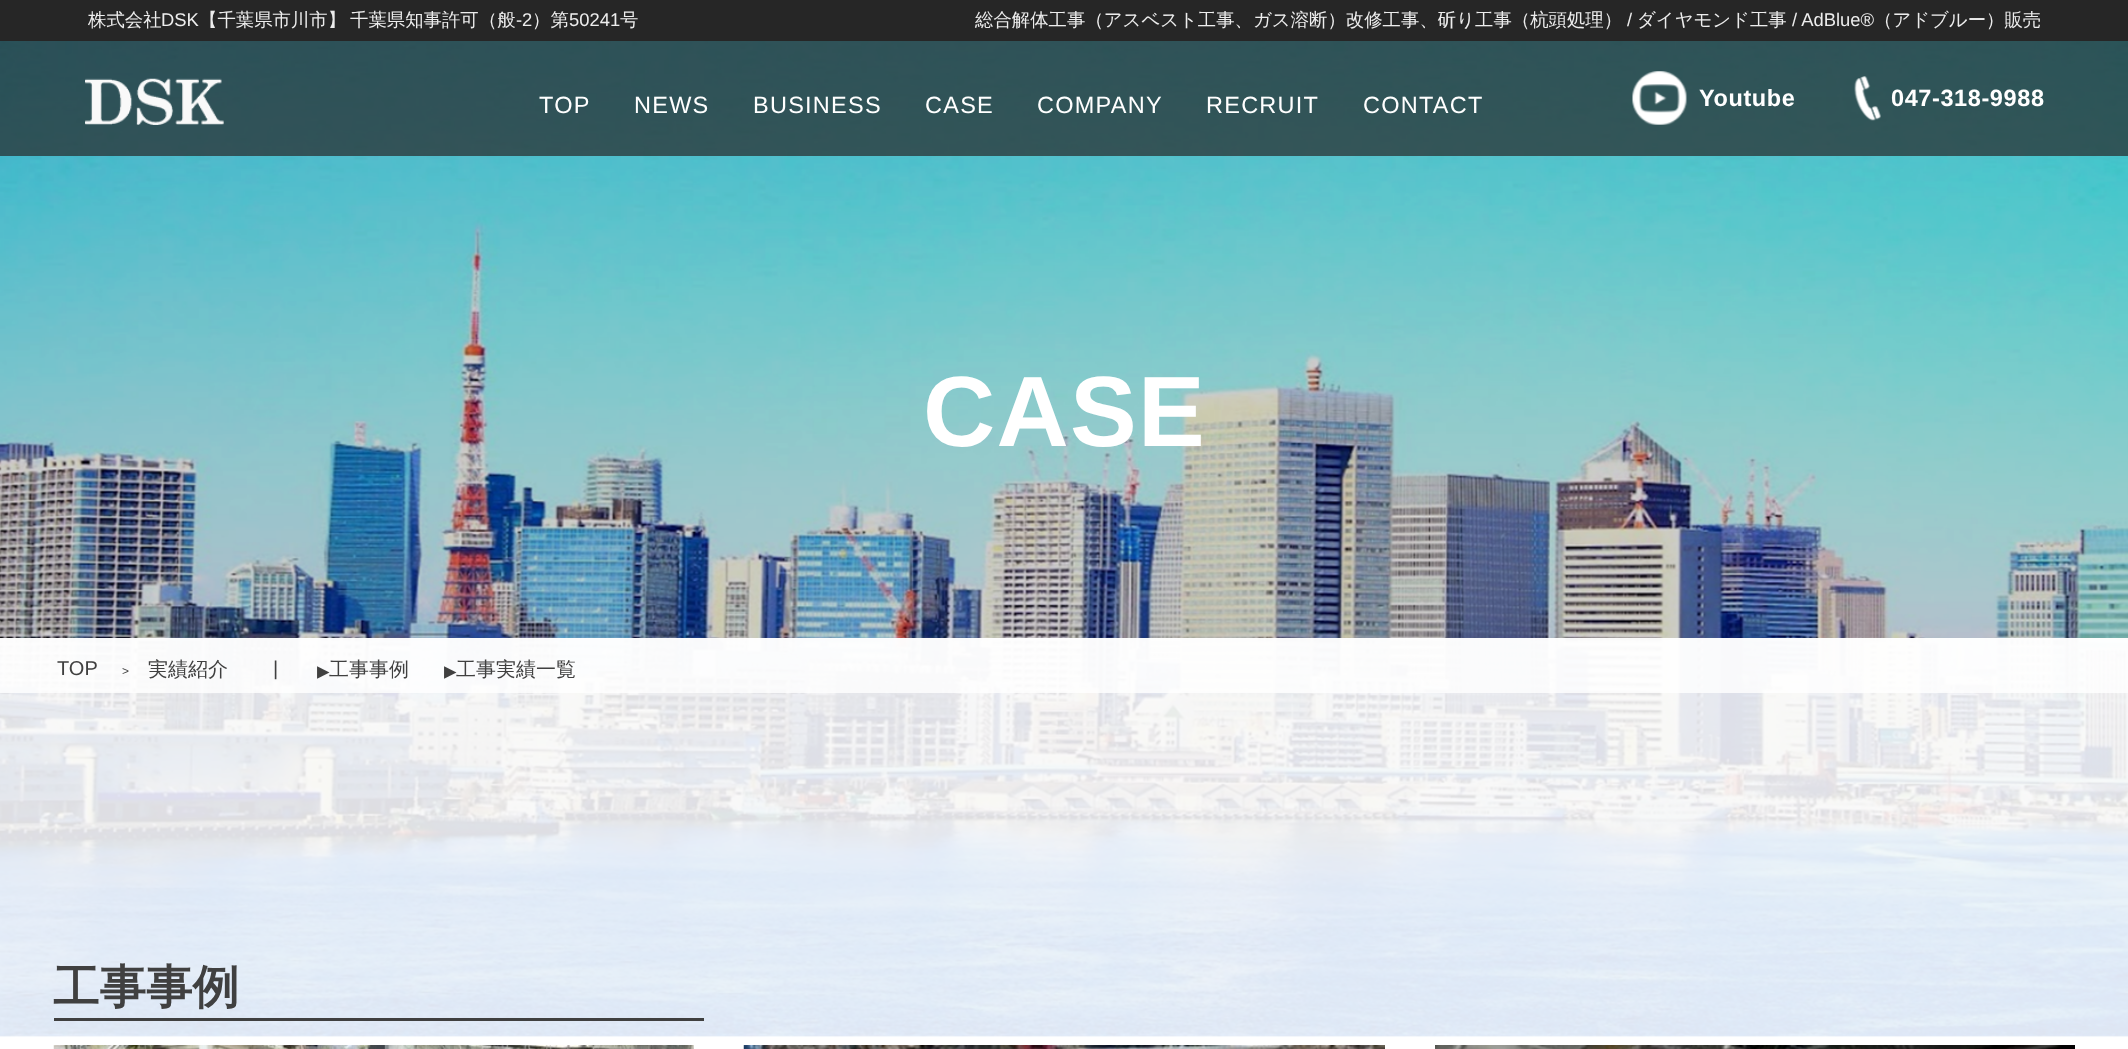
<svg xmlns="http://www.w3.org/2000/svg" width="2128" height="1049">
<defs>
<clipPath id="clip1"><rect x="444" y="658" width="132" height="26"/></clipPath>
</defs>
<rect width="100%" height="100%" fill="#fff"/>
<image x="0" y="41" width="2128" height="997" href="media/4.png"/>
<rect y="41" width="2128" height="115" fill="#262626b3"/>
<rect width="2128" height="41" fill="#262626"/>
<text x="88" y="26" style="font-family:WenQuanYi Zen Hei;font-size:18.4px;font-weight:500;fill:#ededed">株式会社</text>
<text x="161" y="26" style="font-family:Liberation Sans;font-size:18.4px;fill:#ededed">DSK</text>
<text x="199" y="26" style="font-family:WenQuanYi Zen Hei;font-size:18.4px;font-weight:500;fill:#ededed">【千葉県市川市】</text>
<text x="350" y="26" style="font-family:WenQuanYi Zen Hei;font-size:18.4px;font-weight:500;fill:#ededed">千葉県知事許可（般</text>
<text x="516" y="26" style="font-family:Liberation Sans;font-size:18.4px;fill:#ededed">-2</text>
<text x="532" y="26" style="font-family:WenQuanYi Zen Hei;font-size:18.4px;font-weight:500;fill:#ededed">）第</text>
<text x="569" y="26" style="font-family:Liberation Sans;font-size:18.4px;fill:#ededed">50241</text>
<text x="620" y="26" style="font-family:WenQuanYi Zen Hei;font-size:18.4px;font-weight:500;fill:#ededed">号</text>
<text x="975" y="26" style="font-family:WenQuanYi Zen Hei;font-size:18.4px;font-weight:500;fill:#ededed">総合解体工事（アスベスト工事、ガス溶断）改修工事、斫り工事（杭頭処理）</text>
<text x="1627" y="26" style="font-family:Liberation Sans;font-size:18.4px;fill:#ededed">/</text>
<text x="1637" y="26" style="font-family:WenQuanYi Zen Hei;font-size:18.4px;font-weight:500;fill:#ededed">ダイヤモンド工事</text>
<text x="1792" y="26" style="font-family:Liberation Sans;font-size:18.4px;fill:#ededed">/ AdBlue®</text>
<text x="1874" y="26" style="font-family:WenQuanYi Zen Hei;font-size:18.4px;font-weight:500;fill:#ededed">（アドブルー）販売</text>
<image x="85" y="78" width="139" height="47" href="media/1.png"/>
<text x="539" y="113" style="font-family:Liberation Sans;font-size:23.5px;letter-spacing:1.25px;fill:#fff">TOP</text>
<text x="634" y="113" style="font-family:Liberation Sans;font-size:23.5px;letter-spacing:1.25px;fill:#fff">NEWS</text>
<text x="753" y="113" style="font-family:Liberation Sans;font-size:23.5px;letter-spacing:1.25px;fill:#fff">BUSINESS</text>
<text x="925" y="113" style="font-family:Liberation Sans;font-size:23.5px;letter-spacing:1.25px;fill:#fff">CASE</text>
<text x="1037" y="113" style="font-family:Liberation Sans;font-size:23.5px;letter-spacing:1.25px;fill:#fff">COMPANY</text>
<text x="1206" y="113" style="font-family:Liberation Sans;font-size:23.5px;letter-spacing:1.25px;fill:#fff">RECRUIT</text>
<text x="1363" y="113" style="font-family:Liberation Sans;font-size:23.5px;letter-spacing:1.25px;fill:#fff">CONTACT</text>
<image x="1632" y="71" width="55" height="54" href="media/2.png"/>
<text x="1699" y="106" style="font-family:Liberation Sans;font-size:23.5px;font-weight:bold;letter-spacing:0.6px;fill:#fff">Youtube</text>
<image x="1854" y="76" width="27" height="45" href="media/3.png"/>
<text x="1891" y="106" style="font-family:Liberation Sans;font-size:23.5px;font-weight:bold;letter-spacing:0.6px;fill:#fff">047-318-9988</text>
<text x="923" y="446" style="font-family:Liberation Sans;font-size:100px;font-weight:bold;letter-spacing:1.25px;fill:#fff">CASE</text>
<rect y="638" width="2128" height="400" fill="#ffffffde"/>
<rect y="638" width="2128" height="55" fill="#ffffffcc"/>
<text x="57" y="675" style="font-family:Liberation Sans;font-size:20px;fill:#404040">TOP</text>
<text x="122" y="675" style="font-family:Liberation Sans;font-size:12px;fill:#404040">&gt;</text>
<text x="148" y="676" style="font-family:WenQuanYi Zen Hei;font-size:20px;font-weight:500;fill:#404040">実績紹介</text>
<text x="273" y="675" style="font-family:Liberation Sans;font-size:20px;fill:#404040">|</text>
<text x="329" y="676" style="font-family:WenQuanYi Zen Hei;font-size:20px;font-weight:500;fill:#404040">工事事例</text>
<text x="317" y="679" style="font-family:DejaVu Sans;font-size:25px;fill:#404040">▸</text>
<text x="456" y="676" style="font-family:WenQuanYi Zen Hei;font-size:20px;font-weight:500;fill:#404040">工事実績一覧</text>
<g clip-path="url(#clip1)">
<text x="444" y="679" style="font-family:DejaVu Sans;font-size:25px;fill:#404040">▸</text>
</g>
<rect x="54" y="1018" width="650" height="3" fill="#404040"/>
<text x="53" y="1003" style="font-family:WenQuanYi Zen Hei;font-size:46.5px;font-weight:bold;fill:#404040">工事事例</text>
<image x="53" y="1045" width="641" height="4" href="media/5.png"/>
<image x="743" y="1045" width="642" height="4" href="media/6.png"/>
<image x="1435" y="1045" width="640" height="4" href="media/7.png"/>
</svg>
